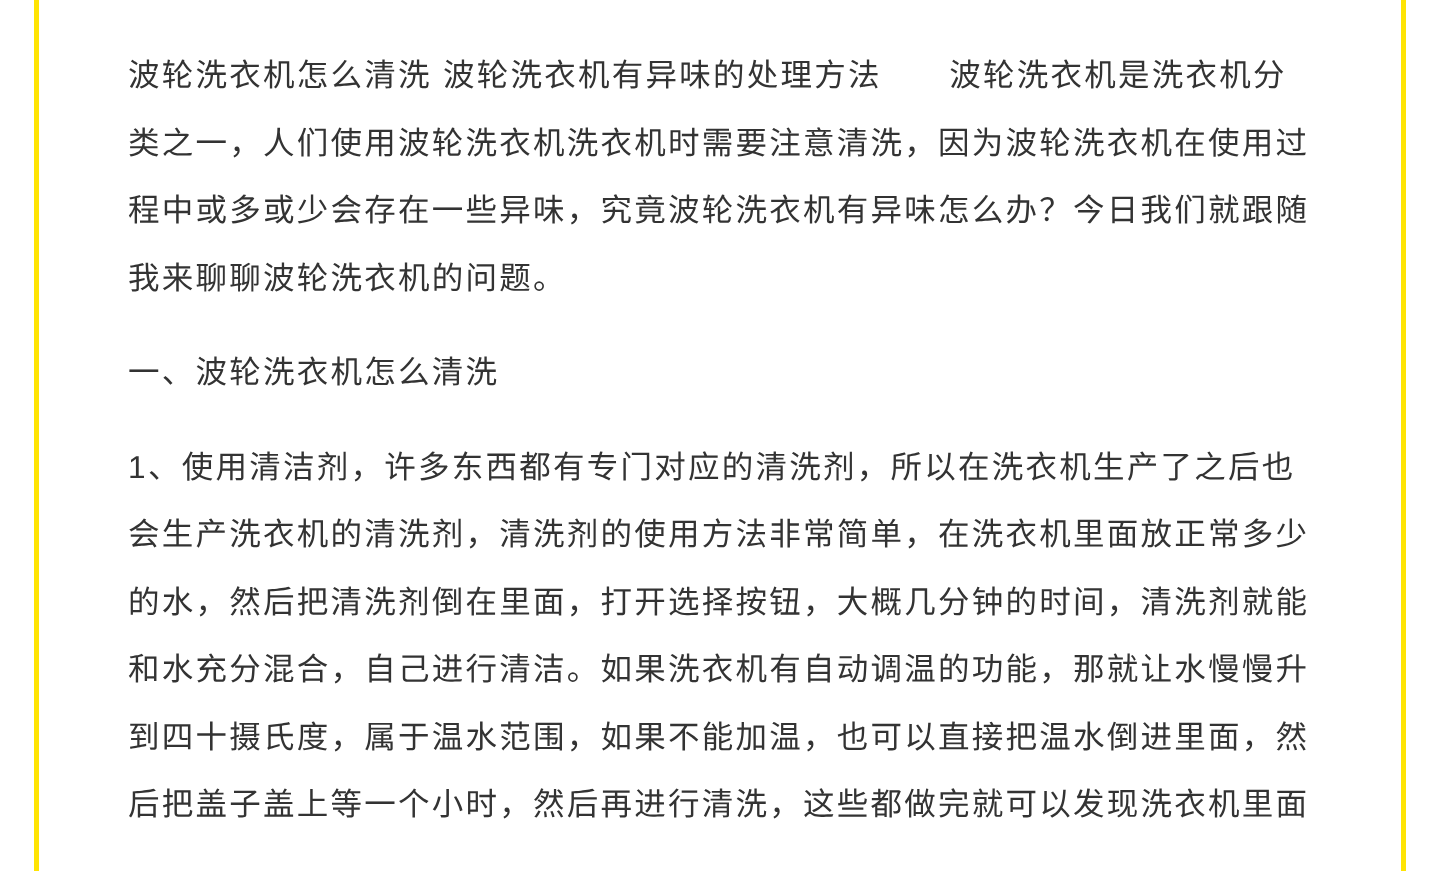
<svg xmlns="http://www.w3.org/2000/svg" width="1440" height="871">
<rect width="100%" height="100%" fill="#fff"/>
<rect x="36.5" y="-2.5" width="1367" height="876" fill="none" stroke="#ffe404" stroke-width="5"/>
<text x="128" y="86" word-spacing="2" style="font-family:Noto Sans CJK SC;font-size:31.5px;letter-spacing:2.25px;fill:#333">波轮洗衣机怎么清洗 波轮洗衣机有异味的处理方法　　波轮洗衣机是洗衣机分</text>
<text x="128" y="154" style="font-family:Noto Sans CJK SC;font-size:31.5px;letter-spacing:2.25px;fill:#333">类之一，人们使用波轮洗衣机洗衣机时需要注意清洗，因为波轮洗衣机在使用过</text>
<text x="128" y="221" style="font-family:Noto Sans CJK SC;font-size:31.5px;letter-spacing:2.25px;fill:#333">程中或多或少会存在一些异味，究竟波轮洗衣机有异味怎么办？今日我们就跟随</text>
<text x="128" y="289" style="font-family:Noto Sans CJK SC;font-size:31.5px;letter-spacing:2.25px;fill:#333">我来聊聊波轮洗衣机的问题。</text>
<text x="128" y="383" style="font-family:Noto Sans CJK SC;font-size:31.5px;letter-spacing:2.25px;fill:#333">一、波轮洗衣机怎么清洗</text>
<text x="128" y="478" style="font-family:Liberation Sans;font-size:31.5px;letter-spacing:2.25px;fill:#333">1</text>
<text x="148" y="478" style="font-family:Noto Sans CJK SC;font-size:31.5px;letter-spacing:2.25px;fill:#333">、使用清洁剂，许多东西都有专门对应的清洗剂，所以在洗衣机生产了之后也</text>
<text x="128" y="545" style="font-family:Noto Sans CJK SC;font-size:31.5px;letter-spacing:2.25px;fill:#333">会生产洗衣机的清洗剂，清洗剂的使用方法非常简单，在洗衣机里面放正常多少</text>
<text x="128" y="613" style="font-family:Noto Sans CJK SC;font-size:31.5px;letter-spacing:2.25px;fill:#333">的水，然后把清洗剂倒在里面，打开选择按钮，大概几分钟的时间，清洗剂就能</text>
<text x="128" y="680" style="font-family:Noto Sans CJK SC;font-size:31.5px;letter-spacing:2.25px;fill:#333">和水充分混合，自己进行清洁。如果洗衣机有自动调温的功能，那就让水慢慢升</text>
<text x="128" y="748" style="font-family:Noto Sans CJK SC;font-size:31.5px;letter-spacing:2.25px;fill:#333">到四十摄氏度，属于温水范围，如果不能加温，也可以直接把温水倒进里面，然</text>
<text x="128" y="815" style="font-family:Noto Sans CJK SC;font-size:31.5px;letter-spacing:2.25px;fill:#333">后把盖子盖上等一个小时，然后再进行清洗，这些都做完就可以发现洗衣机里面</text>
</svg>
